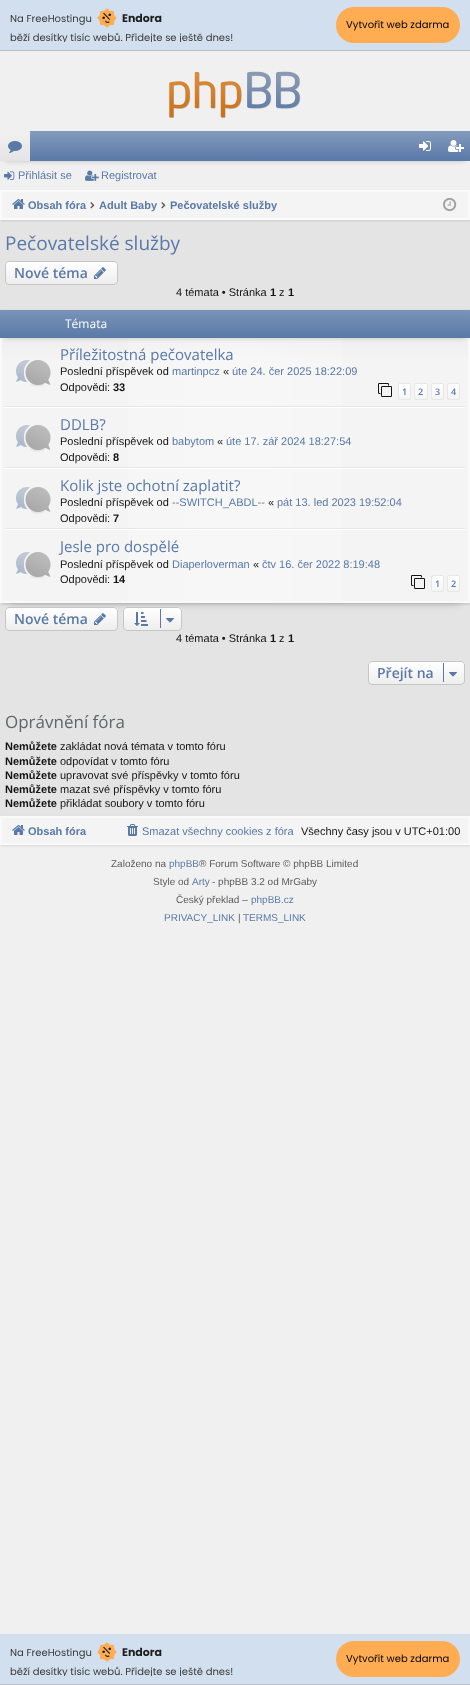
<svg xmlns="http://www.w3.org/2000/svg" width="470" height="1685">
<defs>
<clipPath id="clip1"><rect x="10" y="8" width="326" height="34"/></clipPath>
<linearGradient id="g1" gradientUnits="userSpaceOnUse" x1="235" y1="131" x2="235" y2="161"><stop offset="0" stop-color="#839bbd"/><stop offset="1" stop-color="#5979a7"/></linearGradient>
<linearGradient id="g2" gradientUnits="userSpaceOnUse" x1="15" y1="131" x2="15" y2="161"><stop offset="0" stop-color="#f2f2f2"/><stop offset="1" stop-color="#e4e4e4"/></linearGradient>
<clipPath id="clip2"><rect x="5" y="261" width="113" height="24" rx="4"/></clipPath>
<linearGradient id="g3" gradientUnits="userSpaceOnUse" x1="62" y1="262" x2="62" y2="284"><stop offset="0" stop-color="#fff"/><stop offset="1" stop-color="#fff" stop-opacity="0"/></linearGradient>
<linearGradient id="g4" gradientUnits="userSpaceOnUse" x1="235" y1="311" x2="235" y2="602"><stop offset="0" stop-color="#ececec"/><stop offset="0.03" stop-color="#eaeaea"/><stop offset="0.17" stop-color="#f4f4f4"/></linearGradient>
<linearGradient id="g5" gradientUnits="userSpaceOnUse" x1="1" y1="457" x2="469" y2="457"><stop offset="0" stop-color="#fff" stop-opacity="0"/><stop offset="0.5" stop-color="#fff" stop-opacity="0.3"/><stop offset="1" stop-color="#fff" stop-opacity="0"/></linearGradient>
<linearGradient id="g6" gradientUnits="userSpaceOnUse" x1="235" y1="310" x2="235" y2="338"><stop offset="0" stop-color="#7a94b9"/><stop offset="1" stop-color="#5979a7"/></linearGradient>
<clipPath id="clip3"><rect x="398" y="383" width="13" height="17" rx="2"/></clipPath>
<linearGradient id="g7" gradientUnits="userSpaceOnUse" x1="405" y1="384" x2="405" y2="399"><stop offset="0" stop-color="#fff"/><stop offset="1" stop-color="#f5f5f5"/></linearGradient>
<clipPath id="clip4"><rect x="414" y="383" width="14" height="17" rx="2"/></clipPath>
<linearGradient id="g8" gradientUnits="userSpaceOnUse" x1="421" y1="384" x2="421" y2="399"><stop offset="0" stop-color="#fff"/><stop offset="1" stop-color="#f5f5f5"/></linearGradient>
<clipPath id="clip5"><rect x="431" y="383" width="13" height="17" rx="2"/></clipPath>
<linearGradient id="g9" gradientUnits="userSpaceOnUse" x1="438" y1="384" x2="438" y2="399"><stop offset="0" stop-color="#fff"/><stop offset="1" stop-color="#f4f4f4"/></linearGradient>
<clipPath id="clip6"><rect x="447" y="383" width="13" height="17" rx="2"/></clipPath>
<linearGradient id="g10" gradientUnits="userSpaceOnUse" x1="454" y1="384" x2="454" y2="399"><stop offset="0" stop-color="#fff"/><stop offset="1" stop-color="#f4f4f4"/></linearGradient>
<clipPath id="clip7"><rect x="431" y="575" width="13" height="17" rx="2"/></clipPath>
<linearGradient id="g11" gradientUnits="userSpaceOnUse" x1="438" y1="576" x2="438" y2="591"><stop offset="0" stop-color="#fff"/><stop offset="1" stop-color="#f4f4f4"/></linearGradient>
<clipPath id="clip8"><rect x="447" y="575" width="13" height="17" rx="2"/></clipPath>
<linearGradient id="g12" gradientUnits="userSpaceOnUse" x1="454" y1="576" x2="454" y2="591"><stop offset="0" stop-color="#fff"/><stop offset="1" stop-color="#f4f4f4"/></linearGradient>
<clipPath id="clip9"><rect x="5" y="607" width="113" height="24" rx="4"/></clipPath>
<linearGradient id="g13" gradientUnits="userSpaceOnUse" x1="62" y1="608" x2="62" y2="630"><stop offset="0" stop-color="#fff"/><stop offset="1" stop-color="#fff" stop-opacity="0"/></linearGradient>
<clipPath id="clip10"><rect x="123" y="607" width="59" height="24" rx="4"/></clipPath>
<linearGradient id="g14" gradientUnits="userSpaceOnUse" x1="153" y1="608" x2="153" y2="630"><stop offset="0" stop-color="#fff"/><stop offset="1" stop-color="#fff" stop-opacity="0"/></linearGradient>
<clipPath id="clip11"><rect x="368" y="661" width="97" height="24" rx="4"/></clipPath>
<linearGradient id="g15" gradientUnits="userSpaceOnUse" x1="417" y1="662" x2="417" y2="684"><stop offset="0" stop-color="#fff"/><stop offset="1" stop-color="#fff" stop-opacity="0"/></linearGradient>
<clipPath id="clip12"><rect x="10" y="1642" width="326" height="34"/></clipPath>
</defs>
<rect width="100%" height="100%" fill="#f0f0f0"/>
<rect width="470" height="50" fill="#d2dfef"/>
<rect y="50" width="470" height="1" fill="#bebfc4"/>
<text x="10" y="22" style="font-family:Poppins;font-size:10px;fill:#3a3a3a">Na FreeHostingu</text>
<image x="97" y="8" width="20" height="20" href="media/1.png"/>
<text x="122" y="22" style="font-family:Poppins;font-size:11px;font-weight:bold;fill:#1e1e1e">Endora</text>
<g clip-path="url(#clip1)">
<text x="10" y="41" style="font-family:Poppins;font-size:10px;fill:#3a3a3a">běží desítky tisíc webů. Přidejte se ještě dnes!</text>
</g>
<rect x="336" y="7" width="124" height="36" rx="18" fill="#ffac52"/>
<text x="346" y="28" style="font-family:Poppins;font-size:10px;fill:#000">Vytvořit web zdarma</text>
<image x="169" y="71" width="132" height="47" href="media/2.png"/>
<rect x="5" y="141" width="460" height="20" fill="#00000033" filter="blur(2.5px)"/>
<rect x="30" y="131" width="440" height="30" fill="url(#g1)"/>
<rect y="137" width="30" height="24" fill="url(#g2)"/>
<image x="8" y="141" width="14" height="12" href="media/3.png"/>
<image x="419" y="141" width="12" height="10" href="media/4.png"/>
<image x="448" y="140" width="16" height="12" href="media/5.png"/>
<image x="4" y="171" width="11" height="9" href="media/6.png"/>
<text x="18" y="179" style="font-family:Liberation Sans;font-size:11px;fill:#5979a7">Přihlásit se</text>
<image x="85" y="170" width="14" height="11" href="media/7.png"/>
<text x="101" y="179" style="font-family:Liberation Sans;font-size:11px;fill:#5979a7">Registrovat</text>
<rect y="220" width="470" height="596" fill="#e4e4e4"/>
<rect x="1" y="191" width="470" height="30" fill="#0000001a" filter="blur(1px)"/>
<rect x="1.5" y="191.5" width="467" height="27" fill="#f4f4f4" stroke="#fafafa"/>
<rect x="0.5" y="190.5" width="469" height="29" fill="none" stroke="#f9f9f9"/>
<image x="12" y="199" width="13" height="10" href="media/8.png"/>
<text x="28" y="209" style="font-family:Liberation Sans;font-size:11px;font-weight:bold;fill:#5979a7">Obsah fóra</text>
<image x="90" y="202" width="5" height="7" href="media/9.png"/>
<text x="99" y="209" style="font-family:Liberation Sans;font-size:11px;font-weight:bold;fill:#5979a7">Adult Baby</text>
<image x="161" y="202" width="5" height="7" href="media/9.png"/>
<text x="170" y="209" style="font-family:Liberation Sans;font-size:11px;font-weight:bold;fill:#5979a7">Pečovatelské služby</text>
<image x="443" y="197" width="14" height="15" href="media/10.png"/>
<text x="5" y="250" style="font-family:Open Sans;font-size:19px;fill:#5979a7">Pečovatelské služby</text>
<rect x="5" y="261" width="113" height="24" rx="4" fill="#eee"/>
<g clip-path="url(#clip2)">
<rect x="5" y="262" width="113" height="22" fill="url(#g3)"/>
</g>
<rect x="5.5" y="261.5" width="112" height="23" rx="3.5" fill="none" stroke="#c6c6c6"/>
<text x="14" y="278" style="font-family:Open Sans;font-size:14px;font-weight:600;fill:#5979a7">Nové téma</text>
<image x="94" y="267" width="12" height="12" href="media/11.png"/>
<text x="176" y="296" style="font-family:Liberation Sans;font-size:11px;fill:#141414">4 témata • Stránka</text>
<text x="270" y="296" style="font-family:Liberation Sans;font-size:11px;font-weight:bold;fill:#141414">1</text>
<text x="279" y="296" style="font-family:Liberation Sans;font-size:11px;fill:#141414">z</text>
<text x="288" y="296" style="font-family:Liberation Sans;font-size:11px;font-weight:bold;fill:#141414">1</text>
<rect x="10" y="330" width="450" height="273" fill="#00000033" filter="blur(5px)"/>
<rect x="1" y="311" width="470" height="293" fill="#00000026" filter="blur(1.5px)"/>
<rect x="1" y="338" width="468" height="264" fill="url(#g4)"/>
<rect x="128" y="338" width="214" height="264" fill="url(#g5)"/>
<rect x="1.5" y="311.5" width="467" height="290" fill="none" stroke="#ffffff80"/>
<rect x="0.5" y="310.5" width="469" height="292" fill="none" stroke="#f9f9f9"/>
<rect x="5" y="320" width="460" height="18" fill="#00000033" filter="blur(2.5px)"/>
<rect y="310" width="470" height="28" fill="url(#g6)"/>
<text x="65" y="328" style="font-family:Open Sans;font-size:12px;fill:#fff">Témata</text>
<rect x="5" y="406" width="460" height="1" fill="#e7e7e7"/>
<image x="16" y="360" width="35" height="27" href="media/12.png"/>
<text x="60" y="360" style="font-family:Open Sans;font-size:15px;fill:#5979a7">Příležitostná pečovatelka</text>
<text x="60" y="375" style="font-family:Liberation Sans;font-size:11px;fill:#141414">Poslední příspěvek od</text>
<text x="172" y="375" style="font-family:Liberation Sans;font-size:11px;fill:#5979a7">martinpcz</text>
<text x="223" y="375" style="font-family:Liberation Sans;font-size:11px;fill:#141414">«</text>
<text x="232" y="375" style="font-family:Liberation Sans;font-size:11px;fill:#5979a7">úte 24. čer 2025 18:22:09</text>
<text x="60" y="391" style="font-family:Liberation Sans;font-size:11px;fill:#141414">Odpovědi:</text>
<text x="113" y="391" style="font-family:Liberation Sans;font-size:11px;font-weight:bold;fill:#141414">33</text>
<image x="378" y="383" width="14" height="14" href="media/13.png"/>
<g clip-path="url(#clip3)">
<rect x="398" y="384" width="13" height="15" fill="url(#g7)"/>
</g>
<rect x="398.5" y="383.5" width="12" height="16" rx="1.5" fill="none" stroke="#e7e7e7"/>
<text x="402" y="395" style="font-family:Open Sans;font-size:9px;font-weight:600;fill:#5979a7">1</text>
<g clip-path="url(#clip4)">
<rect x="414" y="384" width="14" height="15" fill="url(#g8)"/>
</g>
<rect x="414.5" y="383.5" width="13" height="16" rx="1.5" fill="none" stroke="#e7e7e7"/>
<text x="418" y="395" style="font-family:Open Sans;font-size:9px;font-weight:600;fill:#5979a7">2</text>
<g clip-path="url(#clip5)">
<rect x="431" y="384" width="13" height="15" fill="url(#g9)"/>
</g>
<rect x="431.5" y="383.5" width="12" height="16" rx="1.5" fill="none" stroke="#e7e7e7"/>
<text x="435" y="395" style="font-family:Open Sans;font-size:9px;font-weight:600;fill:#5979a7">3</text>
<g clip-path="url(#clip6)">
<rect x="447" y="384" width="13" height="15" fill="url(#g10)"/>
</g>
<rect x="447.5" y="383.5" width="12" height="16" rx="1.5" fill="none" stroke="#e7e7e7"/>
<text x="451" y="395" style="font-family:Open Sans;font-size:9px;font-weight:600;fill:#5979a7">4</text>
<rect x="5" y="407" width="460" height="1" fill="#fff"/>
<rect x="5" y="467" width="460" height="1" fill="#e7e7e7"/>
<image x="16" y="425" width="35" height="27" href="media/12.png"/>
<text x="60" y="430" style="font-family:Open Sans;font-size:15px;fill:#5979a7">DDLB?</text>
<text x="60" y="445" style="font-family:Liberation Sans;font-size:11px;fill:#141414">Poslední příspěvek od</text>
<text x="172" y="445" style="font-family:Liberation Sans;font-size:11px;fill:#5979a7">babytom</text>
<text x="217" y="445" style="font-family:Liberation Sans;font-size:11px;fill:#141414">«</text>
<text x="226" y="445" style="font-family:Liberation Sans;font-size:11px;fill:#5979a7">úte 17. zář 2024 18:27:54</text>
<text x="60" y="461" style="font-family:Liberation Sans;font-size:11px;fill:#141414">Odpovědi:</text>
<text x="113" y="461" style="font-family:Liberation Sans;font-size:11px;font-weight:bold;fill:#141414">8</text>
<rect x="5" y="468" width="460" height="1" fill="#fff"/>
<rect x="5" y="528" width="460" height="1" fill="#e7e7e7"/>
<image x="16" y="487" width="35" height="27" href="media/12.png"/>
<text x="60" y="491" style="font-family:Open Sans;font-size:15px;fill:#5979a7">Kolik jste ochotní zaplatit?</text>
<text x="60" y="506" style="font-family:Liberation Sans;font-size:11px;fill:#141414">Poslední příspěvek od</text>
<text x="172" y="506" style="font-family:Liberation Sans;font-size:11px;fill:#5979a7">--SWITCH_ABDL--</text>
<text x="268" y="506" style="font-family:Liberation Sans;font-size:11px;fill:#141414">«</text>
<text x="277" y="506" style="font-family:Liberation Sans;font-size:11px;fill:#5979a7">pát 13. led 2023 19:52:04</text>
<text x="60" y="522" style="font-family:Liberation Sans;font-size:11px;fill:#141414">Odpovědi:</text>
<text x="113" y="522" style="font-family:Liberation Sans;font-size:11px;font-weight:bold;fill:#141414">7</text>
<rect x="5" y="529" width="460" height="1" fill="#fff"/>
<image x="16" y="552" width="35" height="27" href="media/12.png"/>
<text x="60" y="552" style="font-family:Open Sans;font-size:15px;fill:#5979a7">Jesle pro dospělé</text>
<text x="60" y="568" style="font-family:Liberation Sans;font-size:11px;fill:#141414">Poslední příspěvek od</text>
<text x="172" y="568" style="font-family:Liberation Sans;font-size:11px;fill:#5979a7">Diaperloverman</text>
<text x="253" y="568" style="font-family:Liberation Sans;font-size:11px;fill:#141414">«</text>
<text x="262" y="568" style="font-family:Liberation Sans;font-size:11px;fill:#5979a7">čtv 16. čer 2022 8:19:48</text>
<text x="60" y="583" style="font-family:Liberation Sans;font-size:11px;fill:#141414">Odpovědi:</text>
<text x="113" y="583" style="font-family:Liberation Sans;font-size:11px;font-weight:bold;fill:#141414">14</text>
<image x="411" y="575" width="14" height="14" href="media/14.png"/>
<g clip-path="url(#clip7)">
<rect x="431" y="576" width="13" height="15" fill="url(#g11)"/>
</g>
<rect x="431.5" y="575.5" width="12" height="16" rx="1.5" fill="none" stroke="#e7e7e7"/>
<text x="435" y="587" style="font-family:Open Sans;font-size:9px;font-weight:600;fill:#5979a7">1</text>
<g clip-path="url(#clip8)">
<rect x="447" y="576" width="13" height="15" fill="url(#g12)"/>
</g>
<rect x="447.5" y="575.5" width="12" height="16" rx="1.5" fill="none" stroke="#e7e7e7"/>
<text x="451" y="587" style="font-family:Open Sans;font-size:9px;font-weight:600;fill:#5979a7">2</text>
<rect x="5" y="607" width="113" height="24" rx="4" fill="#eee"/>
<g clip-path="url(#clip9)">
<rect x="5" y="608" width="113" height="22" fill="url(#g13)"/>
</g>
<rect x="5.5" y="607.5" width="112" height="23" rx="3.5" fill="none" stroke="#c6c6c6"/>
<text x="14" y="624" style="font-family:Open Sans;font-size:14px;font-weight:600;fill:#5979a7">Nové téma</text>
<image x="94" y="613" width="12" height="12" href="media/11.png"/>
<rect x="123" y="607" width="59" height="24" rx="4" fill="#eee"/>
<g clip-path="url(#clip10)">
<rect x="123" y="608" width="59" height="22" fill="url(#g14)"/>
</g>
<rect x="123.5" y="607.5" width="58" height="23" rx="3.5" fill="none" stroke="#c6c6c6"/>
<image x="134" y="612" width="14" height="14" href="media/15.png"/>
<rect x="160" y="609" width="1" height="19" fill="#5979a7"/>
<image x="166" y="618" width="8" height="5" href="media/16.png"/>
<text x="176" y="642" style="font-family:Liberation Sans;font-size:11px;fill:#141414">4 témata • Stránka</text>
<text x="270" y="642" style="font-family:Liberation Sans;font-size:11px;font-weight:bold;fill:#141414">1</text>
<text x="279" y="642" style="font-family:Liberation Sans;font-size:11px;fill:#141414">z</text>
<text x="288" y="642" style="font-family:Liberation Sans;font-size:11px;font-weight:bold;fill:#141414">1</text>
<rect x="368" y="661" width="97" height="24" rx="4" fill="#eee"/>
<g clip-path="url(#clip11)">
<rect x="368" y="662" width="97" height="22" fill="url(#g15)"/>
</g>
<rect x="368.5" y="661.5" width="96" height="23" rx="3.5" fill="none" stroke="#c6c6c6"/>
<text x="377" y="678" style="font-family:Open Sans;font-size:14px;font-weight:600;fill:#5979a7">Přejít na</text>
<rect x="443" y="663" width="1" height="19" fill="#5979a7"/>
<image x="449" y="672" width="8" height="5" href="media/16.png"/>
<text x="5" y="728" style="font-family:Open Sans;font-size:17px;fill:#61656c">Oprávnění fóra</text>
<text x="5" y="750" style="font-family:Liberation Sans;font-size:11px;font-weight:bold;fill:#141414">Nemůžete</text>
<text x="60" y="750" style="font-family:Liberation Sans;font-size:11px;fill:#141414">zakládat nová témata v tomto fóru</text>
<text x="5" y="765" style="font-family:Liberation Sans;font-size:11px;font-weight:bold;fill:#141414">Nemůžete</text>
<text x="60" y="765" style="font-family:Liberation Sans;font-size:11px;fill:#141414">odpovídat v tomto fóru</text>
<text x="5" y="779" style="font-family:Liberation Sans;font-size:11px;font-weight:bold;fill:#141414">Nemůžete</text>
<text x="60" y="779" style="font-family:Liberation Sans;font-size:11px;fill:#141414">upravovat své příspěvky v tomto fóru</text>
<text x="5" y="793" style="font-family:Liberation Sans;font-size:11px;font-weight:bold;fill:#141414">Nemůžete</text>
<text x="60" y="793" style="font-family:Liberation Sans;font-size:11px;fill:#141414">mazat své příspěvky v tomto fóru</text>
<text x="5" y="807" style="font-family:Liberation Sans;font-size:11px;font-weight:bold;fill:#141414">Nemůžete</text>
<text x="60" y="807" style="font-family:Liberation Sans;font-size:11px;fill:#141414">přikládat soubory v tomto fóru</text>
<rect x="1" y="817" width="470" height="29" fill="#0000001a" filter="blur(1px)"/>
<rect x="1.5" y="817.5" width="467" height="26" fill="#f4f4f4" stroke="#fafafa"/>
<rect x="0.5" y="816.5" width="469" height="28" fill="none" stroke="#f9f9f9"/>
<image x="12" y="825" width="13" height="10" href="media/8.png"/>
<text x="28" y="835" style="font-family:Liberation Sans;font-size:11px;font-weight:bold;fill:#5979a7">Obsah fóra</text>
<image x="127" y="824" width="11" height="12" href="media/17.png"/>
<text x="142" y="835" style="font-family:Liberation Sans;font-size:11px;fill:#5979a7">Smazat všechny cookies z fóra</text>
<text x="301" y="835" style="font-family:Liberation Sans;font-size:11px;fill:#141414">Všechny časy jsou v UTC+01:00</text>
<text x="111" y="867" style="font-family:Liberation Sans;font-size:10px;fill:#5b5b5b">Založeno na</text>
<text x="169" y="867" style="font-family:Liberation Sans;font-size:10px;fill:#5979a7">phpBB</text>
<text x="199" y="867" style="font-family:Liberation Sans;font-size:10px;fill:#5b5b5b">® Forum Software © phpBB Limited</text>
<text x="153" y="885" style="font-family:Liberation Sans;font-size:10px;fill:#5b5b5b">Style od</text>
<text x="192" y="885" style="font-family:Liberation Sans;font-size:10px;fill:#5979a7">Arty</text>
<text x="212" y="885" style="font-family:Liberation Sans;font-size:10px;fill:#5b5b5b">- phpBB 3.2 od MrGaby</text>
<text x="176" y="903" style="font-family:Liberation Sans;font-size:10px;fill:#5b5b5b">Český překlad –</text>
<text x="251" y="903" style="font-family:Liberation Sans;font-size:10px;fill:#5979a7">phpBB.cz</text>
<text x="164" y="921" style="font-family:Liberation Sans;font-size:10px;fill:#5979a7">PRIVACY_LINK</text>
<text x="238" y="921" style="font-family:Liberation Sans;font-size:10px;fill:#5b5b5b">|</text>
<text x="243" y="921" style="font-family:Liberation Sans;font-size:10px;fill:#5979a7">TERMS_LINK</text>
<rect y="1634" width="470" height="50" fill="#d2dfef"/>
<rect y="1684" width="470" height="1" fill="#bebfc4"/>
<text x="10" y="1656" style="font-family:Poppins;font-size:10px;fill:#3a3a3a">Na FreeHostingu</text>
<image x="97" y="1642" width="20" height="20" href="media/1.png"/>
<text x="122" y="1656" style="font-family:Poppins;font-size:11px;font-weight:bold;fill:#1e1e1e">Endora</text>
<g clip-path="url(#clip12)">
<text x="10" y="1675" style="font-family:Poppins;font-size:10px;fill:#3a3a3a">běží desítky tisíc webů. Přidejte se ještě dnes!</text>
</g>
<rect x="336" y="1641" width="124" height="36" rx="18" fill="#ffac52"/>
<text x="346" y="1662" style="font-family:Poppins;font-size:10px;fill:#000">Vytvořit web zdarma</text>
</svg>
